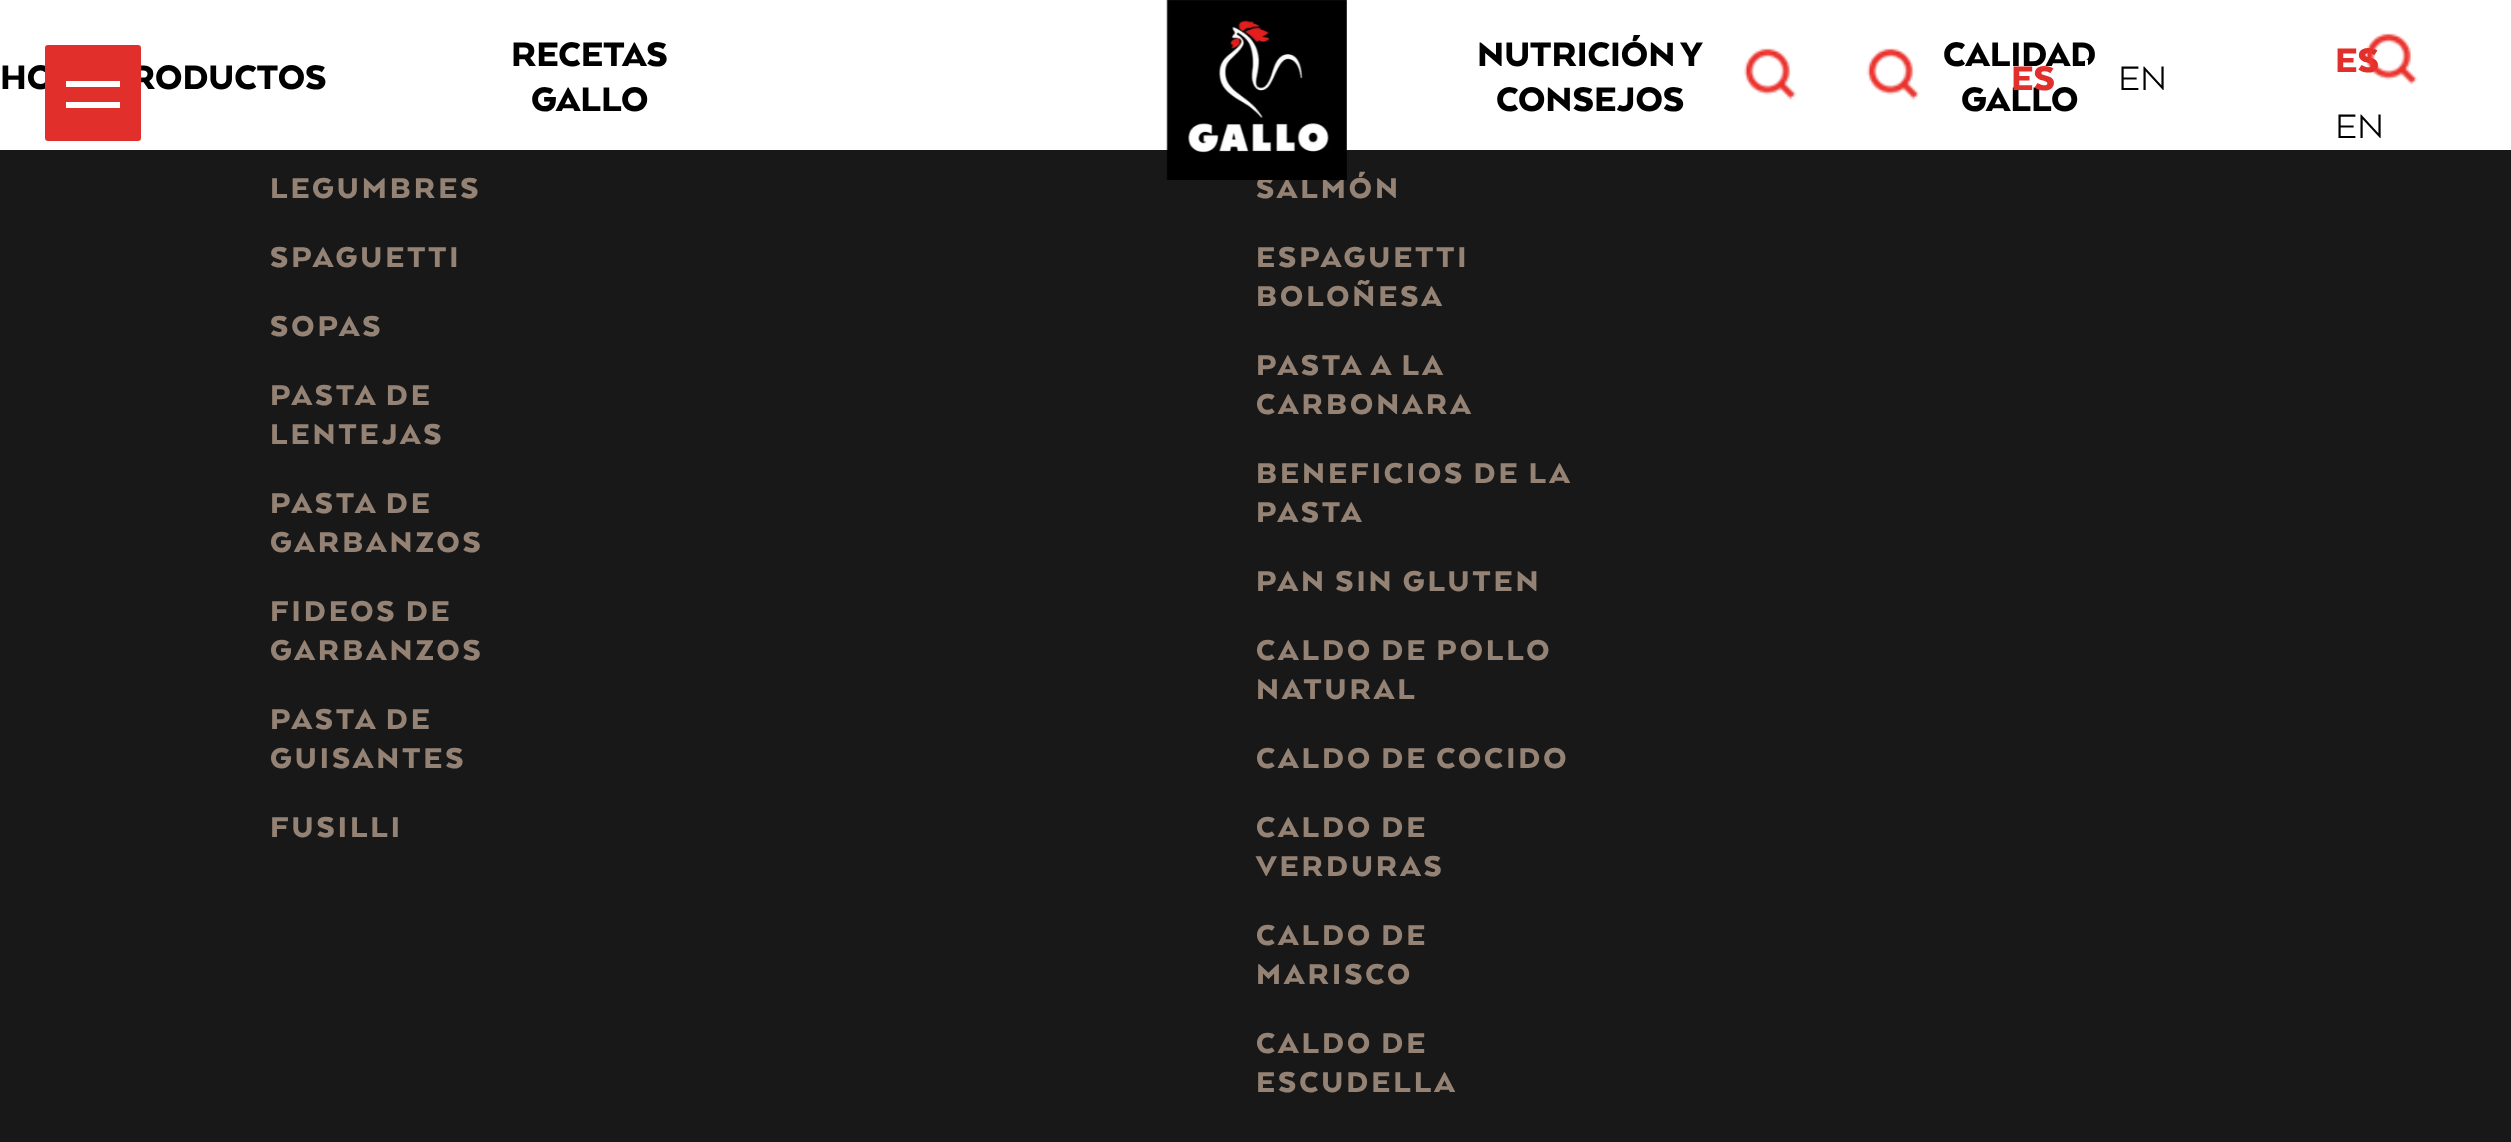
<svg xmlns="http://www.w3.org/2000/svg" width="2511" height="1142">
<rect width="100%" height="100%" fill="#181818"/>
<rect width="2511" height="150" fill="#fff"/>
<text x="1256" y="198" style="font-family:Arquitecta;font-size:33px;font-weight:900;letter-spacing:3px;fill:#948274">SALMÓN</text>
<image x="1166" y="0" width="181" height="180" href="media/1.png"/>
<text x="0" y="89" style="font-family:Arquitecta;font-size:39px;font-weight:900;fill:#000">HO</text>
<text x="130" y="89" style="font-family:Arquitecta;font-size:39px;font-weight:900;fill:#000">RODUCTOS</text>
<text x="511" y="66" style="font-family:Arquitecta;font-size:39px;font-weight:900;fill:#000">RECETAS</text>
<text x="531" y="111" style="font-family:Arquitecta;font-size:39px;font-weight:900;fill:#000">GALLO</text>
<text x="2335" y="72" style="font-family:Arquitecta;font-size:39px;font-weight:900;fill:#e1302b">ES</text>
<image x="2365" y="33" width="53" height="52" href="media/2.png"/>
<text x="1477" y="66" style="font-family:Arquitecta;font-size:39px;font-weight:900;fill:#000">NUTRICIÓN Y</text>
<text x="1496" y="111" style="font-family:Arquitecta;font-size:39px;font-weight:900;fill:#000">CONSEJOS</text>
<text x="1943" y="66" style="font-family:Arquitecta;font-size:39px;font-weight:900;fill:#000">CALIDAD</text>
<text x="1961" y="111" style="font-family:Arquitecta;font-size:39px;font-weight:900;fill:#000">GALLO</text>
<image x="1743" y="48" width="54" height="52" href="media/3.png"/>
<image x="1866" y="48" width="54" height="52" href="media/3.png"/>
<rect x="2085" y="60" width="3" height="6" fill="#fff"/>
<text x="2011" y="90" style="font-family:Arquitecta;font-size:39px;font-weight:900;fill:#e1302b">ES</text>
<text x="2118" y="90" style="font-family:Arquitecta;font-size:39px;fill:#000">EN</text>
<text x="2335" y="138" style="font-family:Arquitecta;font-size:39px;fill:#000">EN</text>
<rect x="45" y="45" width="96" height="96" rx="3" fill="#e1302b"/>
<rect x="66" y="81" width="54" height="6" fill="#fff"/>
<rect x="66" y="102" width="54" height="6" fill="#fff"/>
<text x="270" y="198" style="font-family:Arquitecta;font-size:33px;font-weight:900;letter-spacing:3px;fill:#948274">LEGUMBRES</text>
<text x="270" y="267" style="font-family:Arquitecta;font-size:33px;font-weight:900;letter-spacing:3px;fill:#948274">SPAGUETTI</text>
<text x="270" y="336" style="font-family:Arquitecta;font-size:33px;font-weight:900;letter-spacing:3px;fill:#948274">SOPAS</text>
<text x="270" y="405" style="font-family:Arquitecta;font-size:33px;font-weight:900;letter-spacing:3px;fill:#948274">PASTA DE</text>
<text x="270" y="444" style="font-family:Arquitecta;font-size:33px;font-weight:900;letter-spacing:3px;fill:#948274">LENTEJAS</text>
<text x="270" y="513" style="font-family:Arquitecta;font-size:33px;font-weight:900;letter-spacing:3px;fill:#948274">PASTA DE</text>
<text x="270" y="552" style="font-family:Arquitecta;font-size:33px;font-weight:900;letter-spacing:3px;fill:#948274">GARBANZOS</text>
<text x="270" y="621" style="font-family:Arquitecta;font-size:33px;font-weight:900;letter-spacing:3px;fill:#948274">FIDEOS DE</text>
<text x="270" y="660" style="font-family:Arquitecta;font-size:33px;font-weight:900;letter-spacing:3px;fill:#948274">GARBANZOS</text>
<text x="270" y="729" style="font-family:Arquitecta;font-size:33px;font-weight:900;letter-spacing:3px;fill:#948274">PASTA DE</text>
<text x="270" y="768" style="font-family:Arquitecta;font-size:33px;font-weight:900;letter-spacing:3px;fill:#948274">GUISANTES</text>
<text x="270" y="837" style="font-family:Arquitecta;font-size:33px;font-weight:900;letter-spacing:3px;fill:#948274">FUSILLI</text>
<text x="1256" y="267" style="font-family:Arquitecta;font-size:33px;font-weight:900;letter-spacing:3px;fill:#948274">ESPAGUETTI</text>
<text x="1256" y="306" style="font-family:Arquitecta;font-size:33px;font-weight:900;letter-spacing:3px;fill:#948274">BOLOÑESA</text>
<text x="1256" y="375" style="font-family:Arquitecta;font-size:33px;font-weight:900;letter-spacing:3px;fill:#948274">PASTA A LA</text>
<text x="1256" y="414" style="font-family:Arquitecta;font-size:33px;font-weight:900;letter-spacing:3px;fill:#948274">CARBONARA</text>
<text x="1256" y="483" style="font-family:Arquitecta;font-size:33px;font-weight:900;letter-spacing:3px;fill:#948274">BENEFICIOS DE LA</text>
<text x="1256" y="522" style="font-family:Arquitecta;font-size:33px;font-weight:900;letter-spacing:3px;fill:#948274">PASTA</text>
<text x="1256" y="591" style="font-family:Arquitecta;font-size:33px;font-weight:900;letter-spacing:3px;fill:#948274">PAN SIN GLUTEN</text>
<text x="1256" y="660" style="font-family:Arquitecta;font-size:33px;font-weight:900;letter-spacing:3px;fill:#948274">CALDO DE POLLO</text>
<text x="1256" y="699" style="font-family:Arquitecta;font-size:33px;font-weight:900;letter-spacing:3px;fill:#948274">NATURAL</text>
<text x="1256" y="768" style="font-family:Arquitecta;font-size:33px;font-weight:900;letter-spacing:3px;fill:#948274">CALDO DE COCIDO</text>
<text x="1256" y="837" style="font-family:Arquitecta;font-size:33px;font-weight:900;letter-spacing:3px;fill:#948274">CALDO DE</text>
<text x="1256" y="876" style="font-family:Arquitecta;font-size:33px;font-weight:900;letter-spacing:3px;fill:#948274">VERDURAS</text>
<text x="1256" y="945" style="font-family:Arquitecta;font-size:33px;font-weight:900;letter-spacing:3px;fill:#948274">CALDO DE</text>
<text x="1256" y="984" style="font-family:Arquitecta;font-size:33px;font-weight:900;letter-spacing:3px;fill:#948274">MARISCO</text>
<text x="1256" y="1053" style="font-family:Arquitecta;font-size:33px;font-weight:900;letter-spacing:3px;fill:#948274">CALDO DE</text>
<text x="1256" y="1092" style="font-family:Arquitecta;font-size:33px;font-weight:900;letter-spacing:3px;fill:#948274">ESCUDELLA</text>
</svg>
